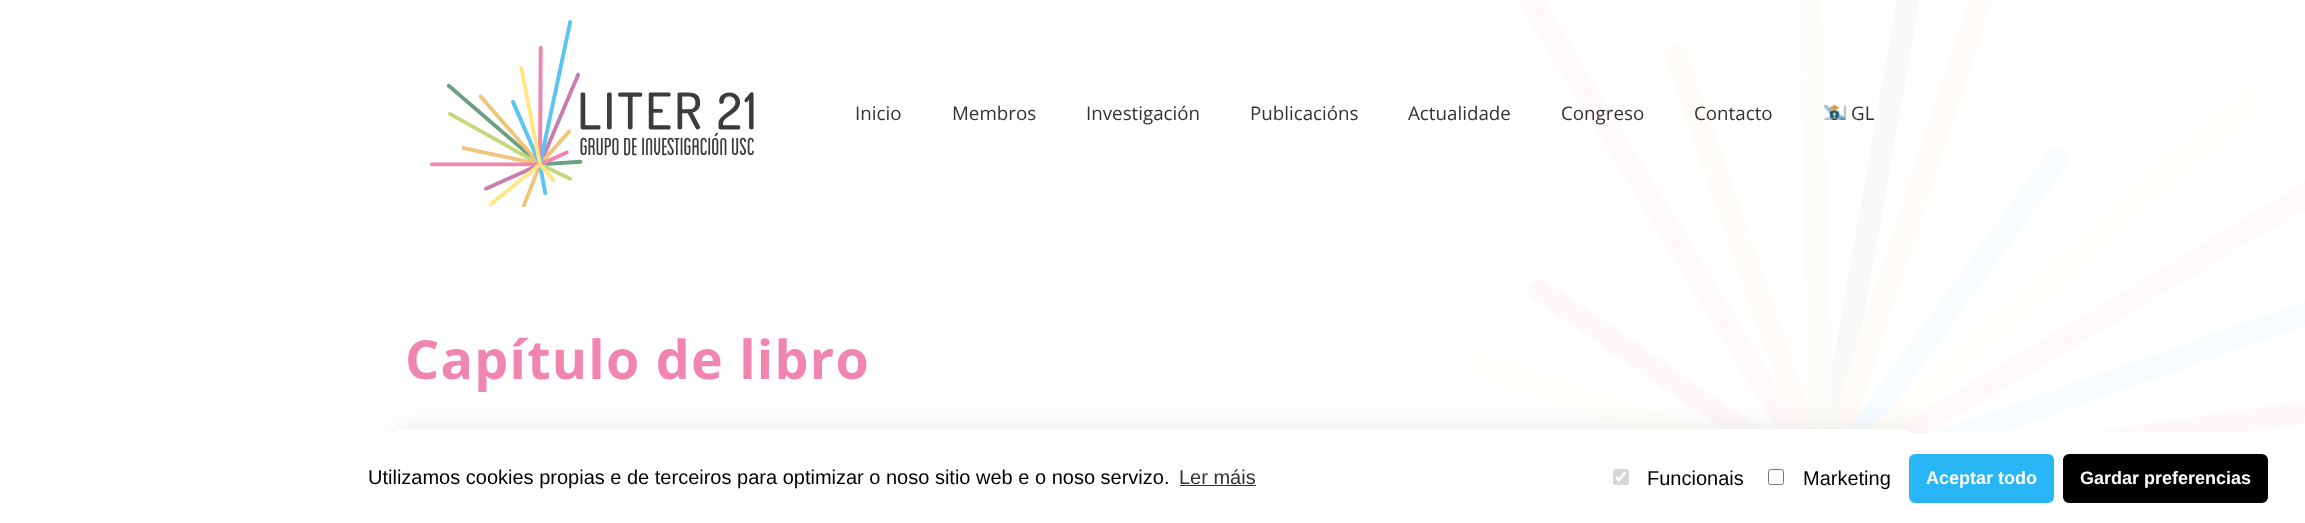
<svg xmlns="http://www.w3.org/2000/svg" width="2305" height="523">
<rect width="100%" height="100%" fill="#fff"/>
<image x="1464" y="0" width="841" height="433" href="media/1.png"/>
<rect x="390" y="429" width="1525" height="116" rx="13" fill="#00000014" filter="blur(15px)"/>
<rect x="390" y="429" width="1525" height="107" rx="13" fill="#fff"/>
<image x="430" y="20" width="324" height="188" href="media/2.png"/>
<text x="855" y="120" style="font-family:Open Sans;font-size:18.75px;fill:#333">Inicio</text>
<text x="952" y="120" style="font-family:Open Sans;font-size:18.75px;fill:#333">Membros</text>
<text x="1086" y="120" style="font-family:Open Sans;font-size:18.75px;fill:#333">Investigación</text>
<text x="1250" y="120" style="font-family:Open Sans;font-size:18.75px;fill:#333">Publicacións</text>
<text x="1408" y="120" style="font-family:Open Sans;font-size:18.75px;fill:#333">Actualidade</text>
<text x="1561" y="120" style="font-family:Open Sans;font-size:18.75px;fill:#333">Congreso</text>
<text x="1694" y="120" style="font-family:Open Sans;font-size:18.75px;fill:#333">Contacto</text>
<image x="1823" y="105" width="24" height="15" href="media/3.png"/>
<text x="1851" y="120" style="font-family:Open Sans;font-size:18.75px;fill:#333">GL</text>
<text x="405" y="379" style="font-family:Open Sans;font-size:53.75px;font-weight:bold;letter-spacing:1.25px;fill:#f086b0">Capítulo de libro</text>
<rect x="373" y="433" width="1559" height="90" fill="#fff"/>
<text x="368" y="484" style="font-family:Liberation Sans;font-size:20px;fill:#000">Utilizamos cookies propias e de terceiros para optimizar o noso sitio web e o noso servizo.</text>
<text x="1179" y="484" style="font-family:Liberation Sans;font-size:20px;fill:#333">Ler máis</text>
<rect x="1180" y="485" width="76" height="1" fill="#333"/>
<rect x="1613" y="469" width="16" height="16" rx="2.5" fill="#d6d6d6"/>
<path d="M1616 477l3 3l6.5-8" fill="none" stroke="#fff" stroke-width="2.6"/>
<text x="1647" y="485" style="font-family:Liberation Sans;font-size:20px;fill:#000">Funcionais</text>
<rect x="1768.5" y="469.5" width="15" height="15" rx="2" fill="none" stroke="#767676"/>
<text x="1803" y="485" style="font-family:Liberation Sans;font-size:20px;fill:#000">Marketing</text>
<rect x="1910.5" y="455.5" width="142" height="46" rx="4.5" fill="#29b6f6" stroke="#29b6f6" stroke-width="3"/>
<text x="1926" y="484" style="font-family:Liberation Sans;font-size:18px;font-weight:bold;fill:#fff">Aceptar todo</text>
<rect x="2064.5" y="455.5" width="202" height="46" rx="4.5" fill="#000" stroke="#000" stroke-width="3"/>
<text x="2080" y="484" style="font-family:Liberation Sans;font-size:18px;font-weight:bold;fill:#fff">Gardar preferencias</text>
</svg>
